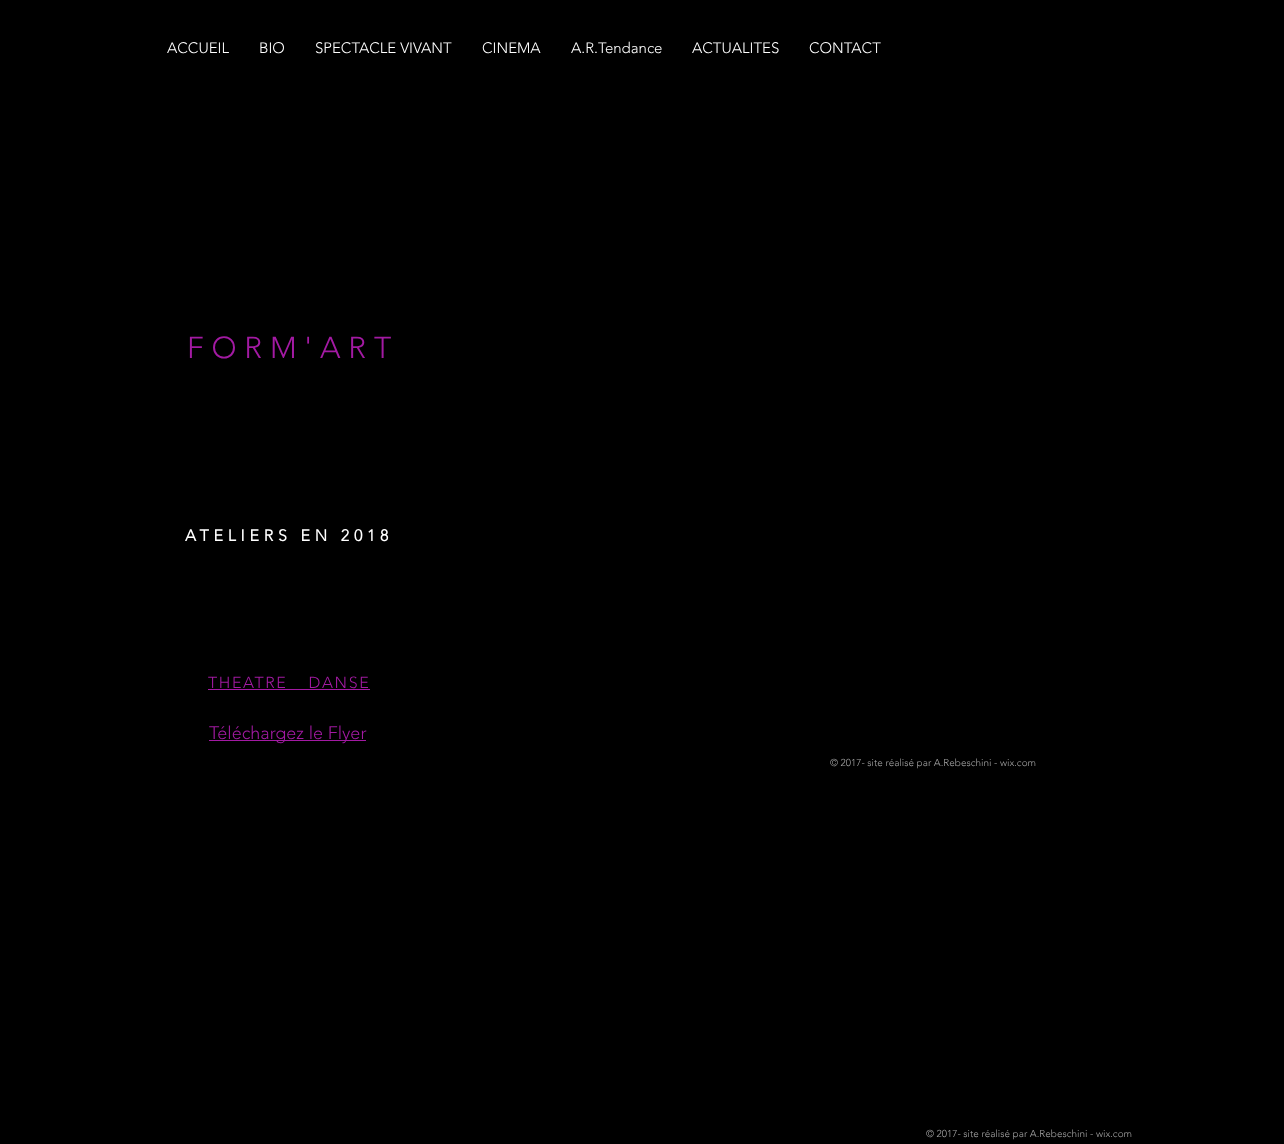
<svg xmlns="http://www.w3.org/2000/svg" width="1284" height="1144">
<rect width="100%" height="100%" fill="#000"/>
<text x="167" y="53" style="font-family:'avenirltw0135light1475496';font-size:15px;font-weight:300;fill:#fff">ACCUEIL</text>
<text x="259" y="53" style="font-family:'avenirltw0135light1475496';font-size:15px;font-weight:300;fill:#fff">BIO</text>
<text x="315" y="53" style="font-family:'avenirltw0135light1475496';font-size:15px;font-weight:300;fill:#fff">SPECTACLE VIVANT</text>
<text x="482" y="53" style="font-family:'avenirltw0135light1475496';font-size:15px;font-weight:300;fill:#fff">CINEMA</text>
<text x="571" y="53" style="font-family:'avenirltw0135light1475496';font-size:15px;font-weight:300;fill:#fff">A.R.Tendance</text>
<text x="692" y="53" style="font-family:'avenirltw0135light1475496';font-size:15px;font-weight:300;fill:#fff">ACTUALITES</text>
<text x="809" y="53" style="font-family:'avenirltw0135light1475496';font-size:15px;font-weight:300;fill:#fff">CONTACT</text>
<text x="187" y="358" style="font-family:'avenirltw0135light1475496';font-size:30px;font-weight:300;fill:#a31aa3">F O R M ' A R T</text>
<text x="185" y="541" style="font-family:'avenirltw0135light1475496';font-size:16px;font-weight:bold;letter-spacing:4.75px;fill:#fff">ATELIERS EN 2018</text>
<rect x="208" y="689" width="162" height="1" fill="#a31aa3"/>
<text x="208" y="688" style="font-family:'avenirltw0135light1475496';font-size:16px;font-weight:300;letter-spacing:1.6px;fill:#a31aa3">THEATRE _ DANSE</text>
<rect x="209" y="740" width="157" height="1" fill="#a31aa3"/>
<text x="209" y="739" style="font-family:'avenirltw0135light1475496';font-size:18px;font-weight:300;fill:#a31aa3">Téléchargez le Flyer</text>
<text x="830" y="766" style="font-family:'avenirltw0135light1475496';font-size:10px;font-weight:300;fill:#a5a5a5">© 2017- site réalisé par A.Rebeschini - wix.com</text>
<text x="926" y="1137" style="font-family:'avenirltw0135light1475496';font-size:10px;font-weight:300;fill:#a5a5a5">© 2017- site réalisé par A.Rebeschini - wix.com</text>
</svg>
